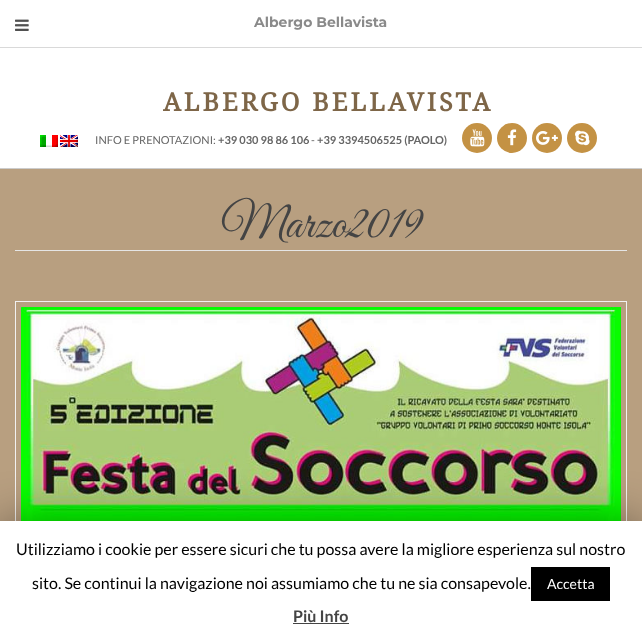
<svg xmlns="http://www.w3.org/2000/svg" width="642" height="642">
<rect width="100%" height="100%" fill="#fff"/>
<rect y="47" width="642" height="1" fill="#d9d9d9"/>
<image x="15" y="19" width="14" height="12" href="media/1.png"/>
<text x="254" y="27" style="font-family:Montserrat;font-size:14px;font-weight:bold;fill:#8a8a8a">Albergo Bellavista</text>
<rect y="168" width="642" height="1" fill="#ccc"/>
<text x="163" y="111" style="font-family:Droid Serif;font-size:25.25px;font-weight:bold;letter-spacing:3px;fill:#7e6648">ALBERGO BELLAVISTA</text>
<image x="40" y="135" width="18" height="12" href="media/2.png"/>
<image x="60" y="135" width="18" height="12" href="media/3.png"/>
<text x="95" y="144" style="font-family:Lato;font-size:11px;fill:#666">INFO E PRENOTAZIONI:</text>
<text x="218" y="144" style="font-family:Lato;font-size:11px;font-weight:bold;fill:#666">+39 030 98 86 106</text>
<text x="311" y="144" style="font-family:Lato;font-size:11px;fill:#666">-</text>
<text x="317" y="144" style="font-family:Lato;font-size:11px;font-weight:bold;fill:#666">+39 3394506525 (PAOLO)</text>
<circle cx="477" cy="138" r="15" fill="#c49244"/>
<image x="470" y="129" width="15" height="18" href="media/4.png"/>
<circle cx="512" cy="138" r="15" fill="#c49244"/>
<image x="507" y="129" width="10" height="17" href="media/5.png"/>
<circle cx="547" cy="138" r="15" fill="#c49244"/>
<image x="536" y="131" width="22" height="14" href="media/6.png"/>
<circle cx="582" cy="138" r="15" fill="#c49244"/>
<image x="575" y="130" width="15" height="16" href="media/7.png"/>
<rect y="169" width="642" height="352" fill="#b89f80"/>
<rect x="15" y="250" width="612" height="1" fill="#e5e5e5"/>
<text x="221" y="237" style="font-family:Great Vibes;font-size:48px;fill:#444">Marzo2019</text>
<rect x="15.5" y="301.5" width="611" height="279" fill="none" stroke="#f1f1f1"/>
<image x="21" y="307" width="600" height="214" href="media/8.png"/>
<rect y="526" width="642" height="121" fill="#00000080" filter="blur(25px)"/>
<rect y="521" width="642" height="121" fill="#fff"/>
<text x="16" y="555" style="font-family:Lato;font-size:16px;fill:#000">Utilizziamo i cookie per essere sicuri che tu possa avere la migliore esperienza sul nostro</text>
<text x="32" y="589" style="font-family:Lato;font-size:16px;fill:#000">sito. Se continui la navigazione noi assumiamo che tu ne sia consapevole.</text>
<rect x="531" y="567" width="79" height="34" fill="#000"/>
<text x="547" y="589" style="font-family:Lato;font-size:14px;fill:#fff">Accetta</text>
<text x="293" y="622" style="font-family:Lato;font-size:16px;font-weight:bold;fill:#444">Più Info</text>
<rect x="293" y="623" width="56" height="1" fill="#444"/>
</svg>
